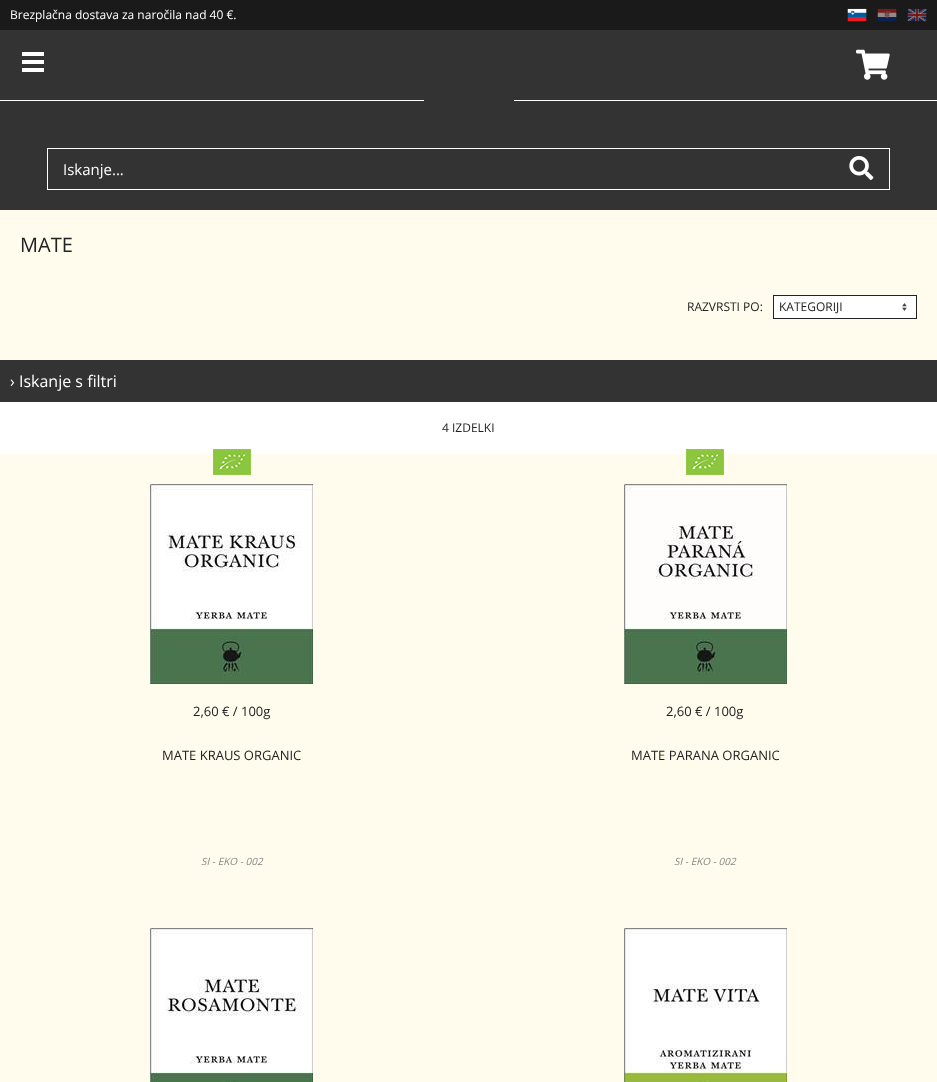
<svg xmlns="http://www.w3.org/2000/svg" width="937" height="1082">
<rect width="100%" height="100%" fill="#fffcee"/>
<rect y="30" width="937" height="180" fill="#333"/>
<rect width="937" height="30" fill="#1a1a1a"/>
<text x="10" y="19" style="font-family:Open Sans;font-size:12px;fill:#fff">Brezplačna dostava za naročila nad 40 €.</text>
<image x="847" y="8" width="20" height="14" href="media/1.png"/>
<image x="877" y="8" width="20" height="14" href="media/2.png"/>
<image x="907" y="8" width="20" height="14" href="media/3.png"/>
<rect y="100" width="424" height="1" fill="#fff"/>
<rect x="514" y="100" width="423" height="1" fill="#fff"/>
<rect x="22" y="52" width="22" height="4" fill="#fff"/>
<rect x="22" y="60" width="22" height="4" fill="#fff"/>
<rect x="22" y="68" width="22" height="4" fill="#fff"/>
<image x="856" y="49" width="34" height="31" href="media/4.png"/>
<rect x="47.5" y="148.5" width="842" height="41" fill="none" stroke="#fff"/>
<text x="63" y="175" style="font-family:Open Sans;font-size:15px;fill:#fff">Iskanje...</text>
<image x="849" y="156" width="25" height="24" href="media/5.png"/>
<text x="20" y="252" style="font-family:Open Sans;font-size:20px;fill:#222">MATE</text>
<text x="687" y="311" style="font-family:Open Sans;font-size:12px;fill:#222">RAZVRSTI PO:</text>
<rect x="774" y="296" width="142" height="22" fill="#fff"/>
<image x="902" y="303" width="5" height="8" href="media/6.png"/>
<rect x="773.5" y="295.5" width="143" height="23" fill="none" stroke="#222"/>
<text x="779" y="311" style="font-family:Open Sans;font-size:12px;fill:#222">KATEGORIJI</text>
<rect y="360" width="937" height="42" fill="#333"/>
<text x="10" y="387" style="font-family:Open Sans;font-size:16px;fill:#fff">› Iskanje s filtri</text>
<rect y="402" width="937" height="52" fill="#fff"/>
<text x="442" y="432" style="font-family:Open Sans;font-size:12px;fill:#222">4 IZDELKI</text>
<text x="193" y="716" style="font-family:Open Sans;font-size:13px;fill:#222">2,60 € / 100g</text>
<image x="213" y="449" width="38" height="26" href="media/7.png"/>
<image x="150" y="484" width="163" height="200" href="media/8.png"/>
<text x="162" y="760" style="font-family:Open Sans;font-size:13px;fill:#222">MATE KRAUS ORGANIC</text>
<text x="201" y="865" style="font-family:Open Sans;font-size:10px;font-style:italic;fill:#888">SI - EKO - 002</text>
<text x="666" y="716" style="font-family:Open Sans;font-size:13px;fill:#222">2,60 € / 100g</text>
<image x="686" y="449" width="38" height="26" href="media/7.png"/>
<image x="624" y="484" width="163" height="200" href="media/9.png"/>
<text x="631" y="760" style="font-family:Open Sans;font-size:13px;fill:#222">MATE PARANA ORGANIC</text>
<text x="674" y="865" style="font-family:Open Sans;font-size:10px;font-style:italic;fill:#888">SI - EKO - 002</text>
<image x="150" y="928" width="163" height="154" href="media/10.png"/>
<image x="624" y="928" width="163" height="154" href="media/11.png"/>
</svg>
